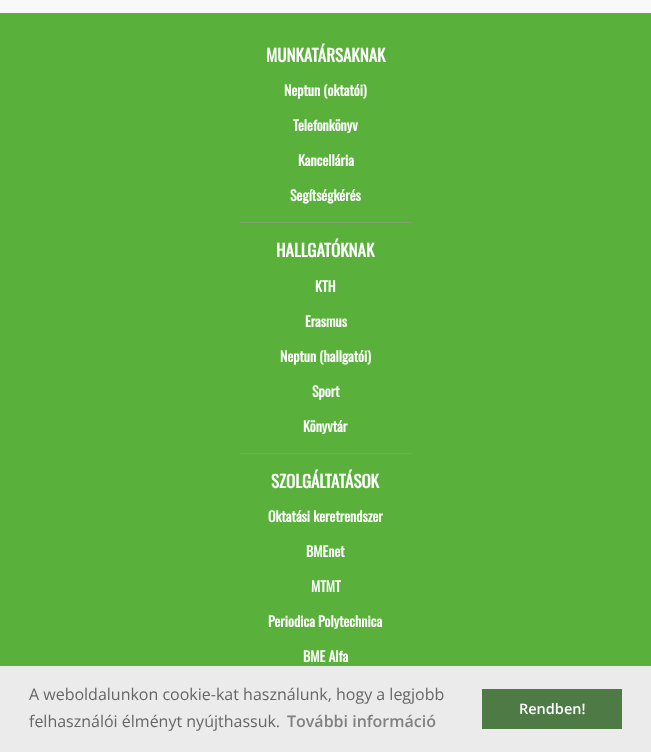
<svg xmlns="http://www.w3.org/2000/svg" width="651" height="752">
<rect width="100%" height="100%" fill="#f9f9fa"/>
<rect y="13" width="651" height="653" fill="#59b13b"/>
<rect x="239" y="222" width="173" height="1" fill="#7da26e"/>
<text x="266" y="62" style="font-family:Oswald;font-size:17px;font-weight:bold;fill:#fff">MUNKATÁRSAKNAK</text>
<text x="284" y="96" style="font-family:Oswald;font-size:14px;font-weight:bold;fill:#fff">Neptun (oktatói)</text>
<text x="293" y="131" style="font-family:Oswald;font-size:14px;font-weight:bold;fill:#fff">Telefonkönyv</text>
<text x="298" y="166" style="font-family:Oswald;font-size:14px;font-weight:bold;fill:#fff">Kancellária</text>
<text x="290" y="201" style="font-family:Oswald;font-size:14px;font-weight:bold;fill:#fff">Segítségkérés</text>
<rect x="239" y="453" width="173" height="1" fill="#7da26e"/>
<text x="276" y="257" style="font-family:Oswald;font-size:17px;font-weight:bold;fill:#fff">HALLGATÓKNAK</text>
<text x="315" y="292" style="font-family:Oswald;font-size:14px;font-weight:bold;fill:#fff">KTH</text>
<text x="305" y="327" style="font-family:Oswald;font-size:14px;font-weight:bold;fill:#fff">Erasmus</text>
<text x="280" y="362" style="font-family:Oswald;font-size:14px;font-weight:bold;fill:#fff">Neptun (hallgatói)</text>
<text x="312" y="397" style="font-family:Oswald;font-size:14px;font-weight:bold;fill:#fff">Sport</text>
<text x="303" y="432" style="font-family:Oswald;font-size:14px;font-weight:bold;fill:#fff">Könyvtár</text>
<text x="271" y="488" style="font-family:Oswald;font-size:17px;font-weight:bold;fill:#fff">SZOLGÁLTATÁSOK</text>
<text x="268" y="522" style="font-family:Oswald;font-size:14px;font-weight:bold;fill:#fff">Oktatási keretrendszer</text>
<text x="306" y="557" style="font-family:Oswald;font-size:14px;font-weight:bold;fill:#fff">BMEnet</text>
<text x="311" y="592" style="font-family:Oswald;font-size:14px;font-weight:bold;fill:#fff">MTMT</text>
<text x="268" y="627" style="font-family:Oswald;font-size:14px;font-weight:bold;fill:#fff">Periodica Polytechnica</text>
<text x="303" y="662" style="font-family:Oswald;font-size:14px;font-weight:bold;fill:#fff">BME Alfa</text>
<rect y="666" width="651" height="86" fill="#ebebeb"/>
<text x="29" y="700" style="font-family:Open Sans;font-size:16px;fill:#666">A weboldalunkon cookie-kat használunk, hogy a legjobb</text>
<text x="29" y="727" style="font-family:Open Sans;font-size:16px;fill:#666">felhasználói élményt nyújthassuk.</text>
<text x="287" y="727" style="font-family:Open Sans;font-size:16px;font-weight:600;fill:#818181">További információ</text>
<rect x="482" y="689" width="140" height="40" fill="#4e7a45"/>
<text x="519" y="714" style="font-family:Open Sans;font-size:14.5px;font-weight:600;fill:#fff">Rendben!</text>
</svg>
